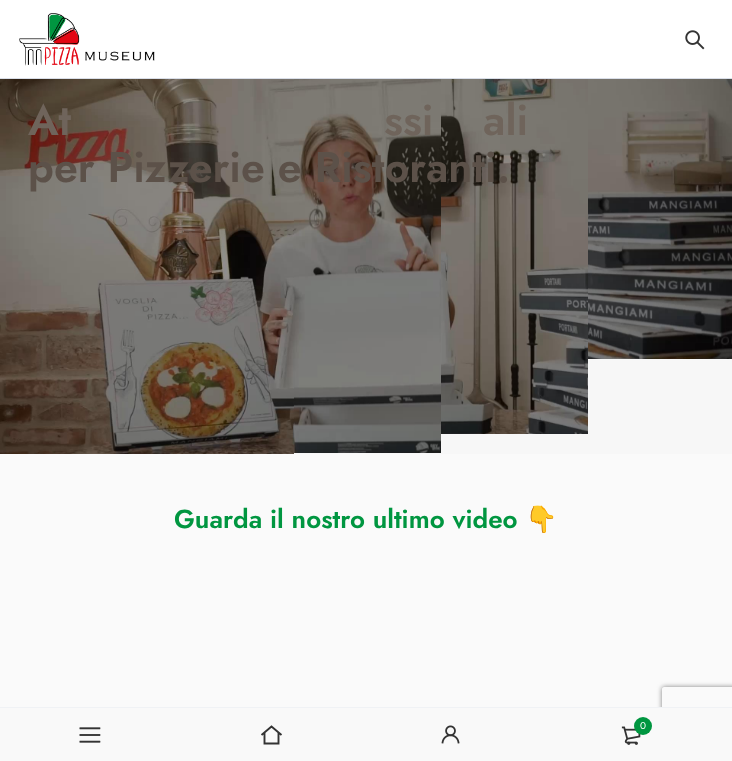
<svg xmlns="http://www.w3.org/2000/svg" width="732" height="761">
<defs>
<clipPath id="clip1"><path d="M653 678h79v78h-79zm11 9h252c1 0 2 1 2 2v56c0 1-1 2-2 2h-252c-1 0-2-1-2-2v-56c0-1 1-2 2-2z" clip-rule="evenodd"/></clipPath>
</defs>
<rect width="100%" height="100%" fill="#fff"/>
<rect y="78" width="732" height="1" fill="#d9dee8"/>
<image x="19" y="13" width="136" height="53" href="media/1.png"/>
<image x="685" y="30" width="20" height="20" href="media/2.png"/>
<rect x="294" y="359" width="438" height="95" fill="#f7f7f7"/>
<image x="0" y="79" width="732" height="375" href="media/3.png"/>
<text x="28" y="135" style="font-family:Jost;font-size:43px;font-weight:600;fill:#6f645b">At</text>
<text x="384" y="135" style="font-family:Jost;font-size:43px;font-weight:600;fill:#6f645b">ssi</text>
<text x="483" y="135" style="font-family:Jost;font-size:43px;font-weight:600;fill:#6f645b">ali</text>
<text x="28" y="182" style="font-family:Jost;font-size:43px;font-weight:600;fill:#5c5149">per Pizzerie e Ristoranti.</text>
<rect y="454" width="732" height="253" fill="#fafafa"/>
<text x="174" y="528" style="font-family:Jost;font-size:26px;font-weight:600;fill:#009640">Guarda il nostro ultimo video</text>
<text x="525" y="528" style="font-family:Noto Color Emoji;font-size:26px;font-weight:bold;fill:#009640">👇</text>
<g clip-path="url(#clip1)">
<rect x="662" y="687" width="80" height="60" rx="2" fill="#808080" filter="blur(2.5px)"/>
</g>
<rect y="708" width="732" height="53" fill="#f9f9f9"/>
<rect y="707" width="732" height="1" fill="#f0f2f5"/>
<image x="79" y="727" width="22" height="16" href="media/4.png"/>
<path d="M278.5 733v10.5h-14v-10.5m17 2l-10-8.5l-10 8.5" fill="none" stroke="#333" stroke-width="1.9"/>
<image x="441" y="725" width="19" height="19" href="media/5.png"/>
<image x="621" y="726" width="20" height="19" href="media/6.png"/>
<circle cx="643" cy="726" r="9" fill="#009640"/>
<text x="640" y="729" style="font-family:Jost;font-size:10px;fill:#fff">0</text>
</svg>
